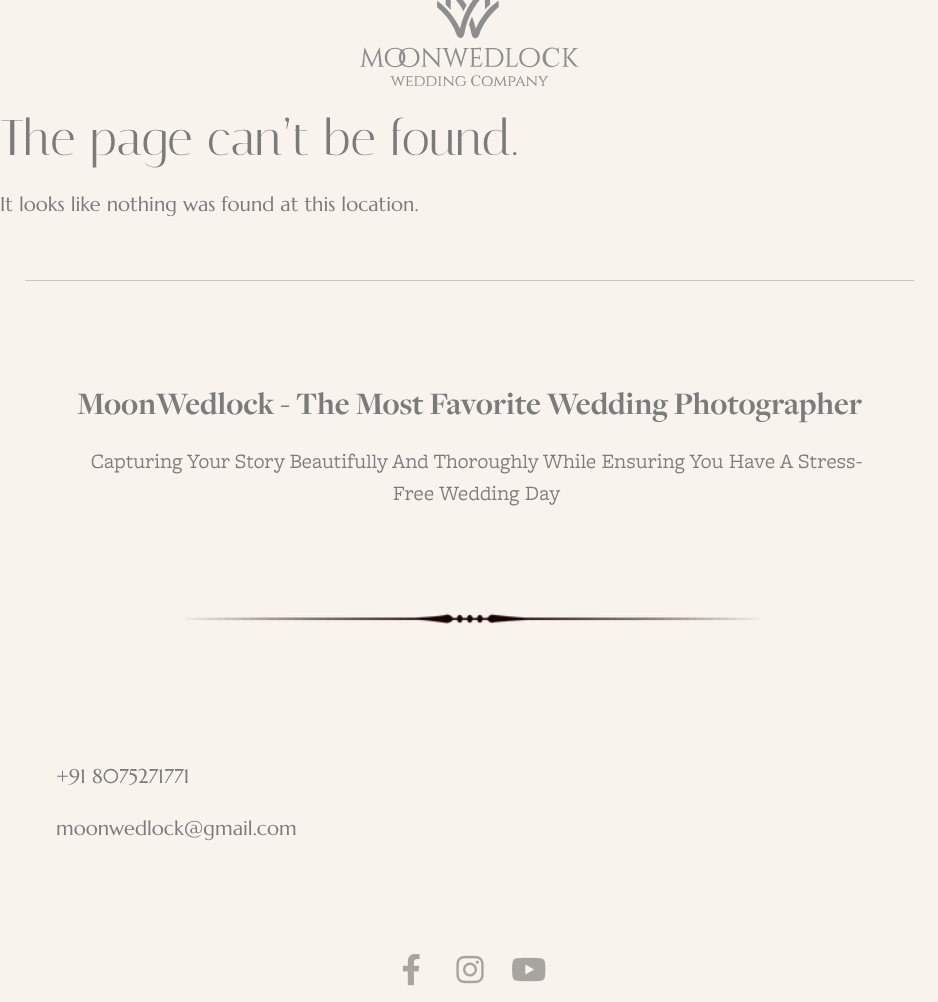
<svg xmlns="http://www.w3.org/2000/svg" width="938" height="1002">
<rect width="100%" height="100%" fill="#f8f4ed"/>
<image x="360" y="0" width="219" height="86" href="media/1.png"/>
<text x="0" y="155" style="font-family:Italiana;font-size:50px;fill:#7b7b7b">The page can’t be found.</text>
<text x="0" y="211" style="font-family:Marcellus;font-size:20px;fill:#7b7b7b">It looks like nothing was found at this location.</text>
<rect x="25" y="280" width="889" height="1" fill="#cac7c3"/>
<text x="77" y="414" style="font-family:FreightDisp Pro;font-size:32.5px;font-weight:bold;fill:#7b7b7b">MoonWedlock - The Most Favorite Wedding Photographer</text>
<text x="91" y="468" style="font-family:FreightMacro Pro;font-size:21.25px;fill:#7b7b7b">Capturing Your Story Beautifully And Thoroughly While Ensuring You Have A Stress-</text>
<text x="393" y="500" style="font-family:FreightMacro Pro;font-size:21.25px;fill:#7b7b7b">Free Wedding Day</text>
<image x="185" y="613" width="574" height="11" href="media/2.png"/>
<text x="56" y="783" style="font-family:Marcellus;font-size:20px;fill:#7b7b7b">+91 8075271771</text>
<text x="56" y="835" style="font-family:Marcellus;font-size:20px;fill:#7b7b7b">moonwedlock@gmail.com</text>
<image x="402" y="954" width="18" height="32" href="media/3.png"/>
<image x="456" y="955" width="28" height="29" href="media/4.png"/>
<image x="512" y="957" width="34" height="25" href="media/5.png"/>
</svg>
